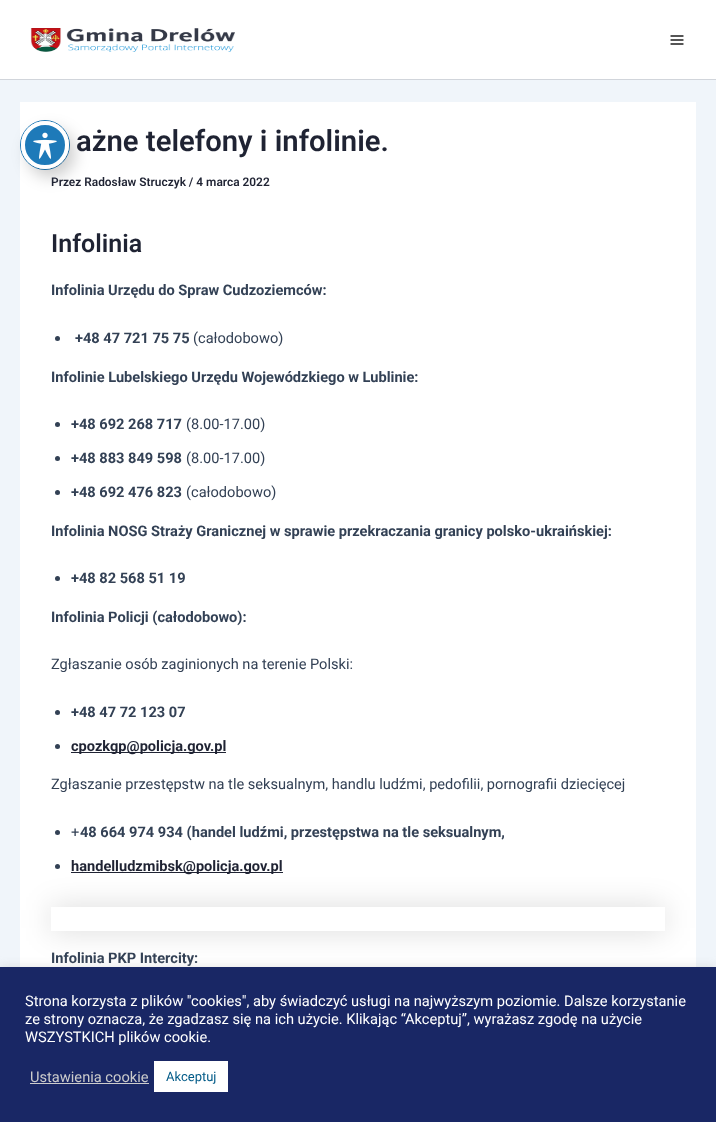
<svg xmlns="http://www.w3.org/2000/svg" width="716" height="1122">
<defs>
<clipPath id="clip1"><path d="M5 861h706v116h-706zm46 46h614v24h-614z" clip-rule="evenodd"/></clipPath>
</defs>
<rect width="100%" height="100%" fill="#f0f5fa"/>
<rect x="20" y="102" width="676" height="865" fill="#fff"/>
<circle cx="45" cy="145" r="24.5" fill="none" stroke="#1e7ab9"/>
<rect x="27" y="129" width="48" height="48" rx="24" fill="#00000033" filter="blur(8px)"/>
<circle cx="45" cy="145" r="22" fill="#1e7ab9" stroke="#fff" stroke-width="4"/>
<image x="33" y="132" width="24" height="27" href="media/1.png"/>
<rect width="716" height="79" fill="#fff"/>
<rect y="79" width="716" height="1" fill="#d1d5db"/>
<image x="30" y="28" width="205" height="24" href="media/2.png"/>
<image x="670" y="35" width="14" height="10" href="media/3.png"/>
<text x="76" y="151" style="font-family:Roboto;font-size:29.25px;font-weight:600;fill:#1f2333">ażne telefony i infolinie.</text>
<text x="51" y="186" style="font-family:Roboto;font-size:11.9px;font-weight:600;fill:#1f2333">Przez Radosław Struczyk / 4 marca 2022</text>
<text x="51" y="252" style="font-family:Roboto;font-size:25px;font-weight:600;fill:#1f2333">Infolinia</text>
<text x="51" y="295" style="font-family:Roboto;font-size:14.6px;font-weight:bold;fill:#334155">Infolinia Urzędu do Spraw Cudzoziemców:</text>
<circle cx="57.5" cy="338.5" r="2.5" fill="#334155"/>
<text x="75" y="343" style="font-family:Roboto;font-size:14.6px;font-weight:bold;fill:#334155">+48 47 721 75 75</text>
<text x="193" y="343" style="font-family:Roboto;font-size:14.6px;fill:#334155">(całodobowo)</text>
<text x="51" y="382" style="font-family:Roboto;font-size:14.6px;font-weight:bold;fill:#334155">Infolinie Lubelskiego Urzędu Wojewódzkiego w Lublinie:</text>
<circle cx="57.5" cy="424.5" r="2.5" fill="#334155"/>
<text x="71" y="429" style="font-family:Roboto;font-size:14.6px;font-weight:bold;fill:#334155">+48 692 268 717</text>
<text x="186" y="429" style="font-family:Roboto;font-size:14.6px;fill:#334155">(8.00-17.00)</text>
<circle cx="57.5" cy="458.5" r="2.5" fill="#334155"/>
<text x="71" y="463" style="font-family:Roboto;font-size:14.6px;font-weight:bold;fill:#334155">+48 883 849 598</text>
<text x="186" y="463" style="font-family:Roboto;font-size:14.6px;fill:#334155">(8.00-17.00)</text>
<circle cx="57.5" cy="492.5" r="2.5" fill="#334155"/>
<text x="71" y="497" style="font-family:Roboto;font-size:14.6px;font-weight:bold;fill:#334155">+48 692 476 823</text>
<text x="186" y="497" style="font-family:Roboto;font-size:14.6px;fill:#334155">(całodobowo)</text>
<text x="51" y="536" style="font-family:Roboto;font-size:14.6px;font-weight:bold;fill:#334155">Infolinia NOSG Straży Granicznej w sprawie przekraczania granicy polsko-ukraińskiej:</text>
<circle cx="57.5" cy="578.5" r="2.5" fill="#334155"/>
<text x="71" y="583" style="font-family:Roboto;font-size:14.6px;font-weight:bold;fill:#334155">+48 82 568 51 19</text>
<text x="51" y="622" style="font-family:Roboto;font-size:14.6px;font-weight:bold;fill:#334155">Infolinia Policji (całodobowo):</text>
<text x="51" y="669" style="font-family:Roboto;font-size:14.6px;fill:#334155">Zgłaszanie osób zaginionych na terenie Polski:</text>
<circle cx="57.5" cy="712.5" r="2.5" fill="#334155"/>
<text x="71" y="717" style="font-family:Roboto;font-size:14.6px;font-weight:bold;fill:#334155">+48 47 72 123 07</text>
<circle cx="57.5" cy="746.5" r="2.5" fill="#334155"/>
<rect x="71" y="752" width="155" height="1" fill="#1f2333"/>
<text x="71" y="751" style="font-family:Roboto;font-size:14.6px;font-weight:bold;fill:#1f2333">cpozkgp@policja.gov.pl</text>
<text x="51" y="789" style="font-family:Roboto;font-size:14.6px;fill:#334155">Zgłaszanie przestępstw na tle seksualnym, handlu ludźmi, pedofilii, pornografii dziecięcej</text>
<circle cx="57.5" cy="832.5" r="2.5" fill="#334155"/>
<text x="71" y="837" style="font-family:Roboto;font-size:14.6px;fill:#334155">+</text>
<text x="80" y="837" style="font-family:Roboto;font-size:14.6px;font-weight:bold;fill:#334155">48 664 974 934 (handel ludźmi, przestępstwa na tle seksualnym,</text>
<g clip-path="url(#clip1)">
<rect x="51" y="907" width="614" height="24" fill="#00000026" filter="blur(15px)"/>
</g>
<circle cx="57.5" cy="866.5" r="2.5" fill="#334155"/>
<rect x="71" y="872" width="212" height="1" fill="#1f2333"/>
<text x="71" y="871" style="font-family:Roboto;font-size:14.6px;font-weight:bold;fill:#1f2333">handelludzmibsk@policja.gov.pl</text>
<text x="51" y="963" style="font-family:Roboto;font-size:14.6px;font-weight:bold;fill:#334155">Infolinia PKP Intercity:</text>
<rect y="966" width="716" height="155" fill="#acabab4d" filter="blur(5px)"/>
<rect y="967" width="716" height="155" fill="#192765"/>
<text x="25" y="1006" style="font-family:Roboto;font-size:14.65px;fill:#fff">Strona korzysta z plików "cookies", aby świadczyć usługi na najwyższym poziomie. Dalsze korzystanie</text>
<text x="25" y="1024" style="font-family:Roboto;font-size:14.65px;fill:#fff">ze strony oznacza, że zgadzasz się na ich użycie. Klikając “Akceptuj”, wyrażasz zgodę na użycie</text>
<text x="25" y="1042" style="font-family:Roboto;font-size:14.65px;fill:#fff">WSZYSTKICH plików cookie.</text>
<text x="30" y="1082" style="font-family:Roboto;font-size:14.65px;fill:#ccc">Ustawienia cookie</text>
<rect x="30" y="1083" width="119" height="1" fill="#ccc"/>
<rect x="154" y="1061" width="74" height="31" fill="#fff"/>
<text x="166" y="1081" style="font-family:Roboto;font-size:13px;fill:#005a87">Akceptuj</text>
</svg>
